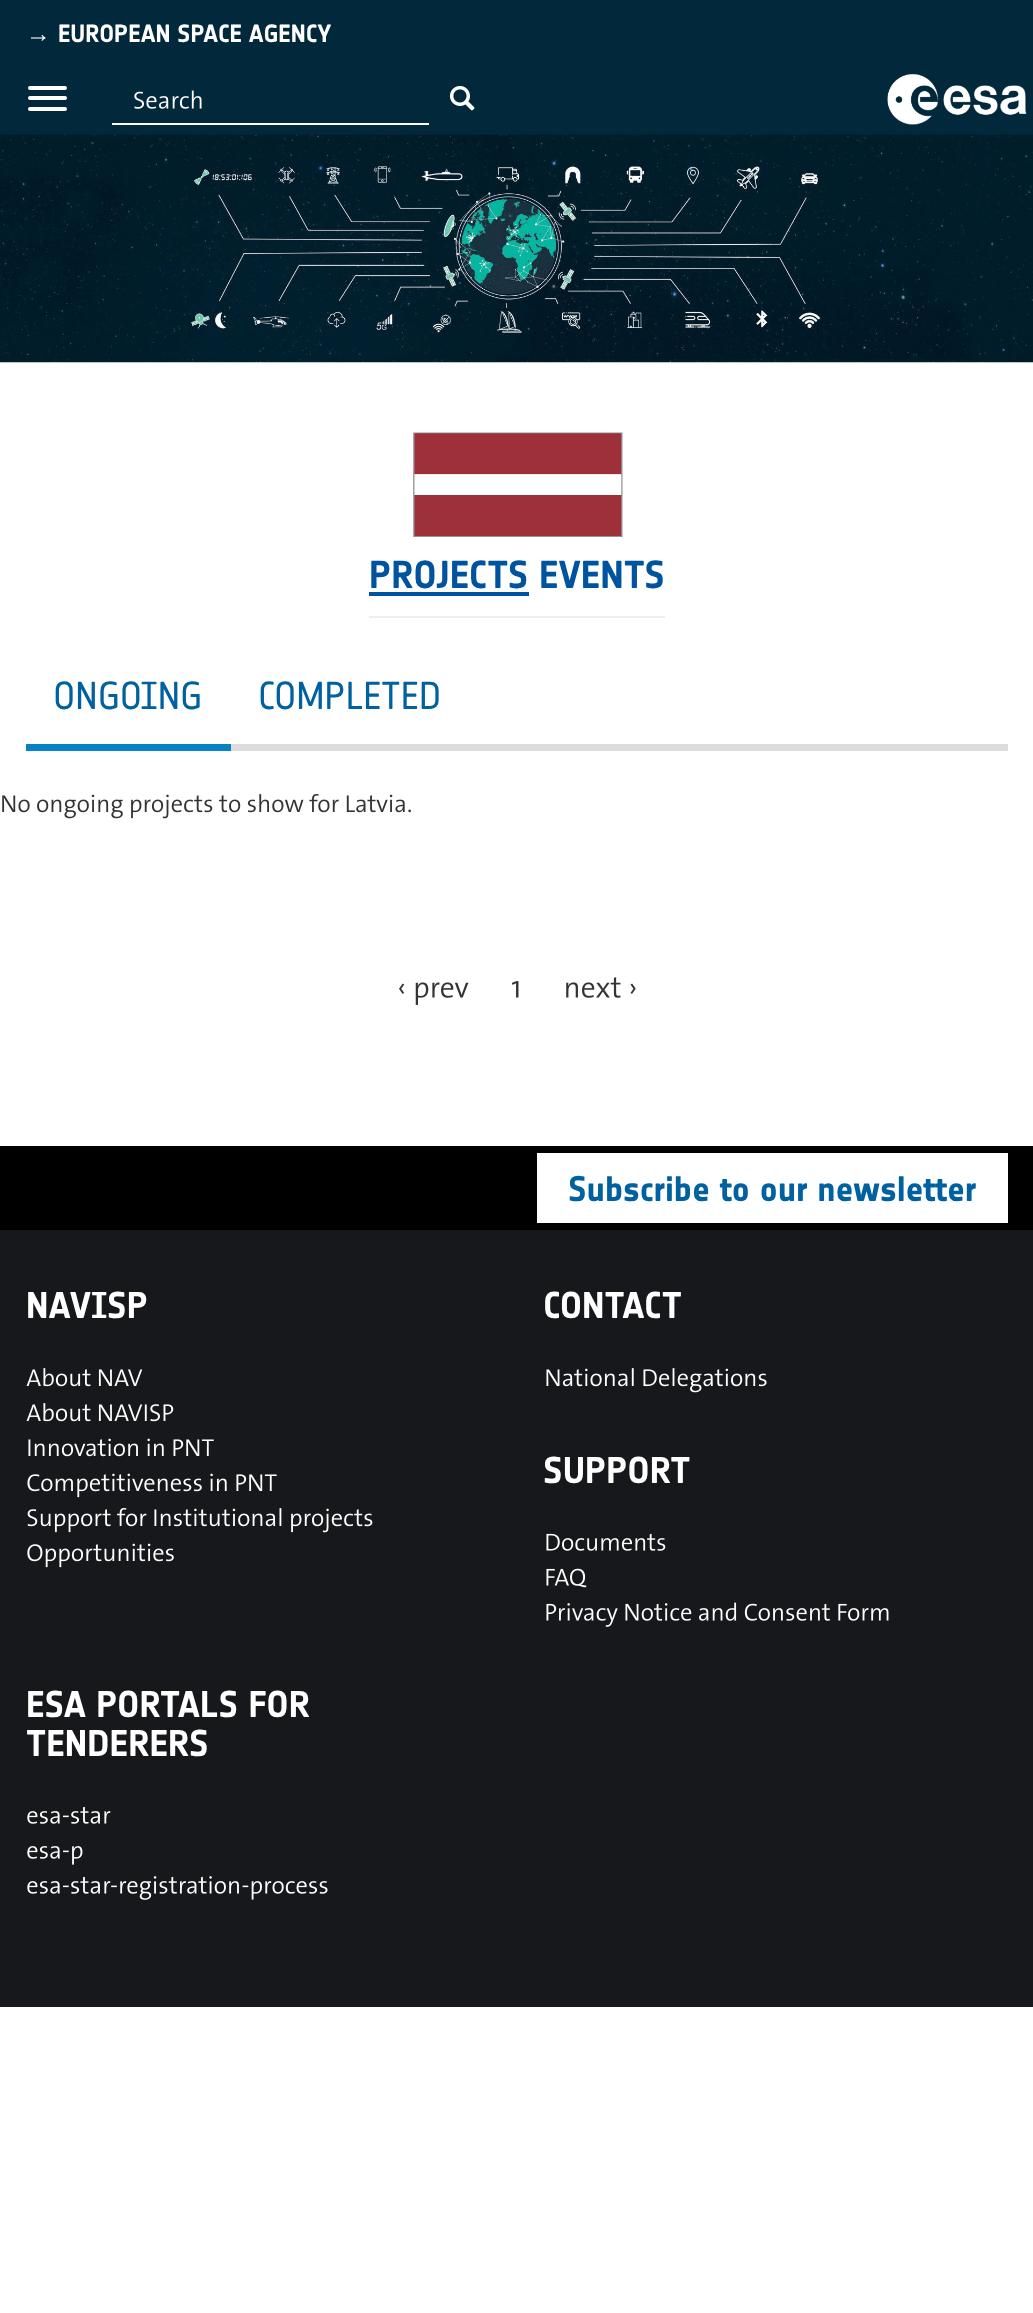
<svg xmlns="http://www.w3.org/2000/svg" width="1033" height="2313">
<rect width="100%" height="100%" fill="#fff"/>
<rect width="1033" height="135" fill="#01283b"/>
<text x="26" y="42" style="font-family:Liberation Sans;font-size:24.5px;fill:#fff">→</text>
<text x="58" y="42" style="font-family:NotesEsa;font-size:24.5px;font-weight:bold;fill:#fff">EUROPEAN SPACE AGENCY</text>
<image x="887" y="74" width="140" height="51" href="media/1.png"/>
<rect x="28" y="86" width="39" height="4" rx="2" fill="#fff"/>
<rect x="28" y="96" width="39" height="4" rx="2" fill="#fff"/>
<rect x="28" y="107" width="39" height="4" rx="2" fill="#fff"/>
<rect x="112" y="123" width="317" height="2" fill="#fff"/>
<image x="134" y="90" width="68" height="19" href="media/2.png"/>
<image x="449" y="85" width="26" height="26" href="media/3.png"/>
<image x="0" y="134" width="1033" height="229" href="media/4.png"/>
<image x="413" y="432" width="210" height="105" href="media/5.png"/>
<rect x="369" y="616" width="296" height="2" fill="#eee"/>
<text x="369" y="588" style="font-family:NotesEsa;font-size:38.5px;font-weight:bold;fill:#00549f">PROJECTS EVENTS</text>
<rect x="369" y="592" width="160" height="4" fill="#00549f"/>
<rect x="231" y="744" width="777" height="7" fill="#ddd"/>
<rect x="26" y="744" width="205" height="7" fill="#0782c4"/>
<text x="53" y="709" style="font-family:NotesEsa;font-size:38.5px;fill:#0061a1">ONGOING</text>
<text x="258" y="709" style="font-family:NotesEsa;font-size:38.5px;fill:#0061a1">COMPLETED</text>
<image x="2" y="794" width="409" height="25" href="media/6.png"/>
<image x="399" y="982" width="70" height="23" href="media/7.png"/>
<image x="512" y="981" width="7" height="17" href="media/8.png"/>
<image x="566" y="977" width="70" height="21" href="media/9.png"/>
<rect y="1146" width="1033" height="84" fill="#000"/>
<rect x="537" y="1153" width="471" height="70" fill="#fff"/>
<text x="568" y="1201" style="font-family:NotesEsa;font-size:35px;font-weight:bold;fill:#0061a1">Subscribe to our newsletter</text>
<rect y="1230" width="1033" height="777" fill="#16181c"/>
<text x="26" y="1318" style="font-family:NotesEsa;font-size:36.75px;font-weight:bold;fill:#fff">NAVISP</text>
<image x="26" y="1368" width="117" height="19" href="media/10.png"/>
<image x="26" y="1403" width="148" height="19" href="media/11.png"/>
<image x="28" y="1438" width="186" height="19" href="media/12.png"/>
<image x="27" y="1473" width="250" height="25" href="media/13.png"/>
<image x="27" y="1508" width="346" height="25" href="media/14.png"/>
<image x="27" y="1543" width="147" height="25" href="media/15.png"/>
<text x="543" y="1318" style="font-family:NotesEsa;font-size:36.75px;font-weight:bold;fill:#fff">CONTACT</text>
<image x="546" y="1368" width="221" height="25" href="media/16.png"/>
<text x="543" y="1483" style="font-family:NotesEsa;font-size:36.75px;font-weight:bold;fill:#fff">SUPPORT</text>
<image x="546" y="1533" width="120" height="18" href="media/17.png"/>
<image x="546" y="1568" width="41" height="20" href="media/18.png"/>
<image x="546" y="1602" width="343" height="25" href="media/19.png"/>
<text x="26" y="1717" style="font-family:NotesEsa;font-size:36.75px;font-weight:bold;fill:#fff">ESA PORTALS FOR</text>
<text x="26" y="1756" style="font-family:NotesEsa;font-size:36.75px;font-weight:bold;fill:#fff">TENDERERS</text>
<image x="27" y="1806" width="84" height="18" href="media/20.png"/>
<image x="27" y="1846" width="56" height="19" href="media/21.png"/>
<image x="27" y="1876" width="301" height="24" href="media/22.png"/>
</svg>
